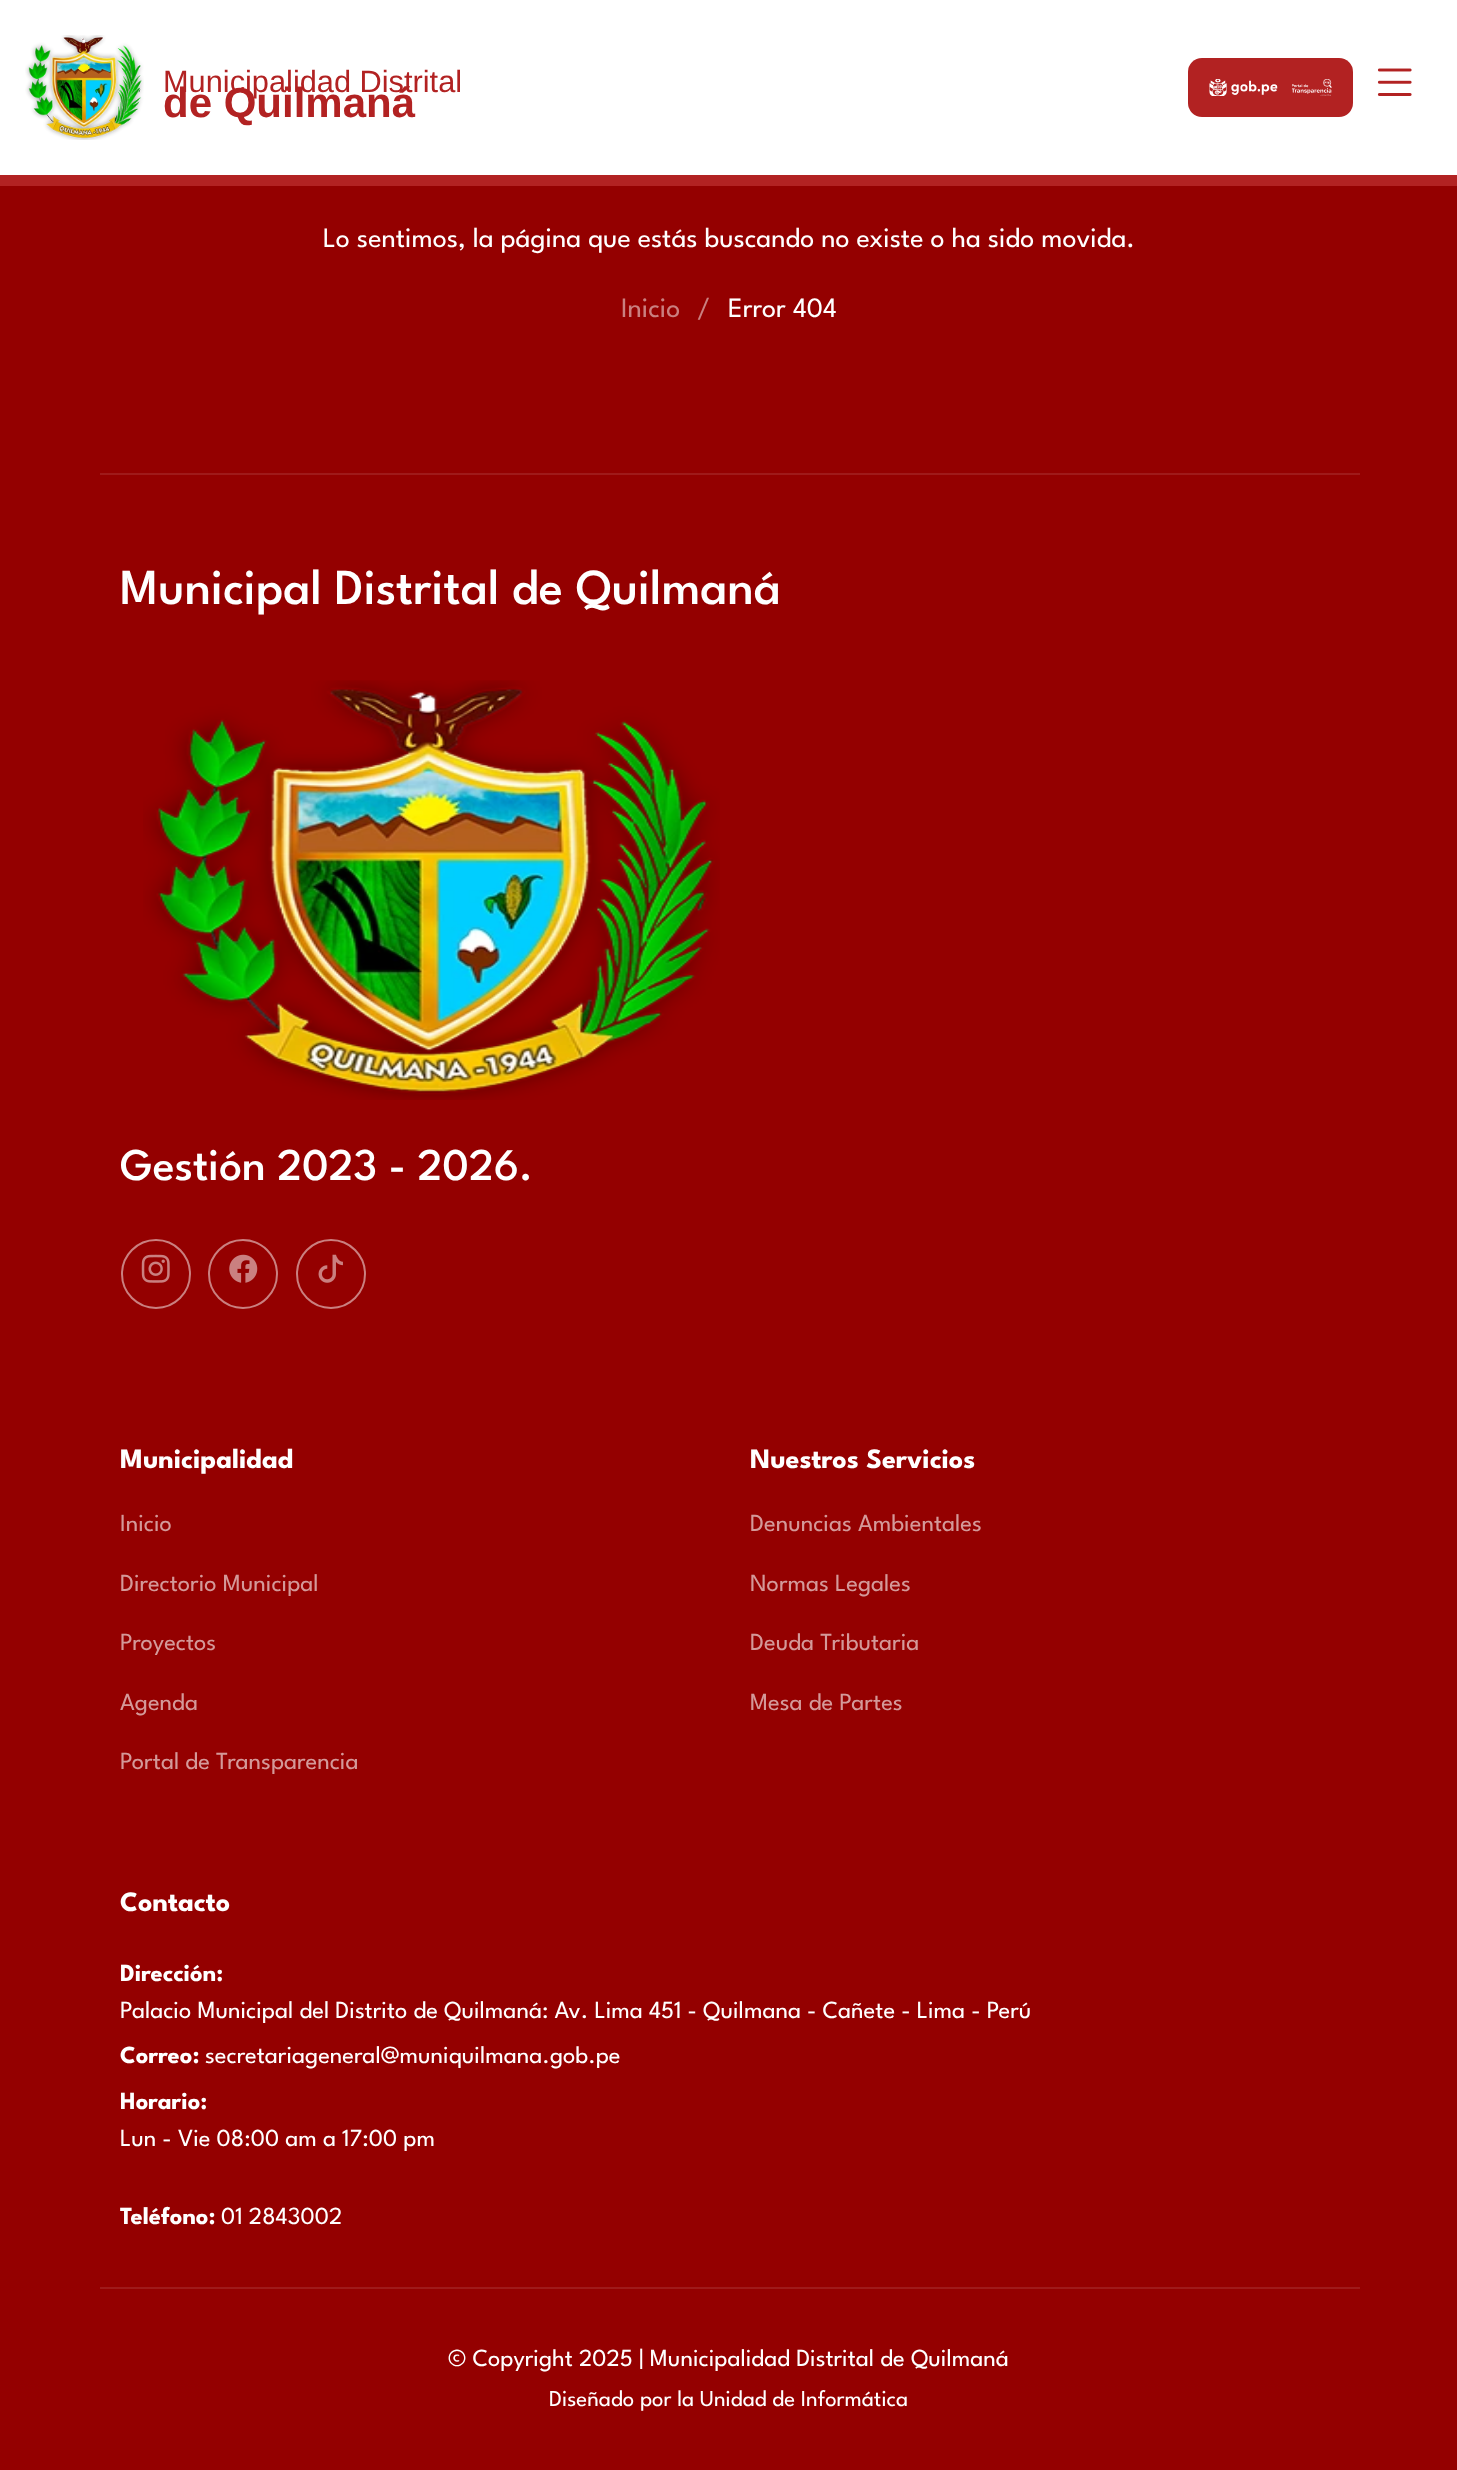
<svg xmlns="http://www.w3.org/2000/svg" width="1457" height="2470">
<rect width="100%" height="100%" fill="#940000"/>
<rect width="1457" height="175" fill="#fff"/>
<rect y="175" width="1457" height="11" fill="#b22222"/>
<image x="25" y="35" width="119" height="105" href="media/1.png"/>
<text x="163" y="92" style="font-family:Liberation Sans;font-size:30.75px;fill:#b22222">Municipalidad Distrital</text>
<text x="163" y="117" style="font-family:Liberation Sans;font-size:42px;font-weight:bold;fill:#b22222">de Quilmaná</text>
<rect x="1188" y="58" width="165" height="59" rx="14" fill="#b22222"/>
<image x="1209" y="79" width="69" height="17" href="media/2.png"/>
<image x="1292" y="79" width="40" height="17" href="media/3.png"/>
<image x="1377" y="68" width="35" height="28" href="media/4.png"/>
<text x="323" y="247" style="font-family:League Spartan;font-size:28px;fill:#fff">Lo sentimos, la página que estás buscando no existe o ha sido movida.</text>
<text x="621" y="317" style="font-family:League Spartan;font-size:28px;fill:#ca8080">Inicio</text>
<text x="697" y="317" style="font-family:League Spartan;font-size:28px;fill:#ca8080">/</text>
<text x="728" y="317" style="font-family:League Spartan;font-size:28px;fill:#fff">Error 404</text>
<rect x="100" y="473" width="1260" height="2" fill="#9f1a1a"/>
<text x="120" y="604" style="font-family:League Spartan;font-size:50.25px;font-weight:500;fill:#fff">Municipal Distrital de Quilmaná</text>
<image x="143" y="680" width="577" height="420" href="media/5.png"/>
<text x="120" y="1180" style="font-family:League Spartan;font-size:45.25px;font-weight:500;fill:#fff">Gestión 2023 - 2026.</text>
<circle cx="156" cy="1274" r="34" fill="none" stroke="#ca8080" stroke-width="2"/>
<image x="141" y="1254" width="29" height="29" href="media/6.png"/>
<circle cx="243" cy="1274" r="34" fill="none" stroke="#ca8080" stroke-width="2"/>
<image x="229" y="1254" width="29" height="29" href="media/7.png"/>
<circle cx="331" cy="1274" r="34" fill="none" stroke="#ca8080" stroke-width="2"/>
<image x="318" y="1254" width="25" height="29" href="media/8.png"/>
<text x="120" y="1468" style="font-family:League Spartan;font-size:28px;font-weight:bold;fill:#fff">Municipalidad</text>
<text x="120" y="1531" style="font-family:League Spartan;font-size:24.5px;fill:#d49999">Inicio</text>
<text x="120" y="1591" style="font-family:League Spartan;font-size:24.5px;fill:#d49999">Directorio Municipal</text>
<text x="120" y="1650" style="font-family:League Spartan;font-size:24.5px;fill:#d49999">Proyectos</text>
<text x="120" y="1710" style="font-family:League Spartan;font-size:24.5px;fill:#d49999">Agenda</text>
<text x="120" y="1769" style="font-family:League Spartan;font-size:24.5px;fill:#d49999">Portal de Transparencia</text>
<text x="750" y="1468" style="font-family:League Spartan;font-size:28px;font-weight:bold;fill:#fff">Nuestros Servicios</text>
<text x="750" y="1531" style="font-family:League Spartan;font-size:24.5px;fill:#d49999">Denuncias Ambientales</text>
<text x="750" y="1591" style="font-family:League Spartan;font-size:24.5px;fill:#d49999">Normas Legales</text>
<text x="750" y="1650" style="font-family:League Spartan;font-size:24.5px;fill:#d49999">Deuda Tributaria</text>
<text x="750" y="1710" style="font-family:League Spartan;font-size:24.5px;fill:#d49999">Mesa de Partes</text>
<text x="120" y="1911" style="font-family:League Spartan;font-size:28px;font-weight:bold;fill:#fff">Contacto</text>
<text x="120" y="1981" style="font-family:League Spartan;font-size:24.5px;font-weight:bold;fill:#fff">Dirección:</text>
<text x="120" y="2018" style="font-family:League Spartan;font-size:24.5px;fill:#fff">Palacio Municipal del Distrito de Quilmaná: Av. Lima 451 - Quilmana - Cañete - Lima - Perú</text>
<text x="120" y="2063" style="font-family:League Spartan;font-size:24.5px;font-weight:bold;fill:#fff">Correo:</text>
<text x="205" y="2063" style="font-family:League Spartan;font-size:24.5px;fill:#fff">secretariageneral@muniquilmana.gob.pe</text>
<text x="120" y="2109" style="font-family:League Spartan;font-size:24.5px;font-weight:bold;fill:#fff">Horario:</text>
<text x="120" y="2146" style="font-family:League Spartan;font-size:24.5px;fill:#fff">Lun - Vie 08:00 am a 17:00 pm</text>
<text x="120" y="2224" style="font-family:League Spartan;font-size:24.5px;font-weight:bold;fill:#fff">Teléfono:</text>
<text x="221" y="2224" style="font-family:League Spartan;font-size:24.5px;fill:#fff">01 2843002</text>
<rect x="100" y="2287" width="1260" height="2" fill="#9f1a1a"/>
<text x="448" y="2366" style="font-family:League Spartan;font-size:24.5px;fill:#fff">© Copyright 2025 | Municipalidad Distrital de Quilmaná</text>
<text x="549" y="2406" style="font-family:League Spartan;font-size:22.75px;fill:#fff">Diseñado por la Unidad de Informática</text>
</svg>
